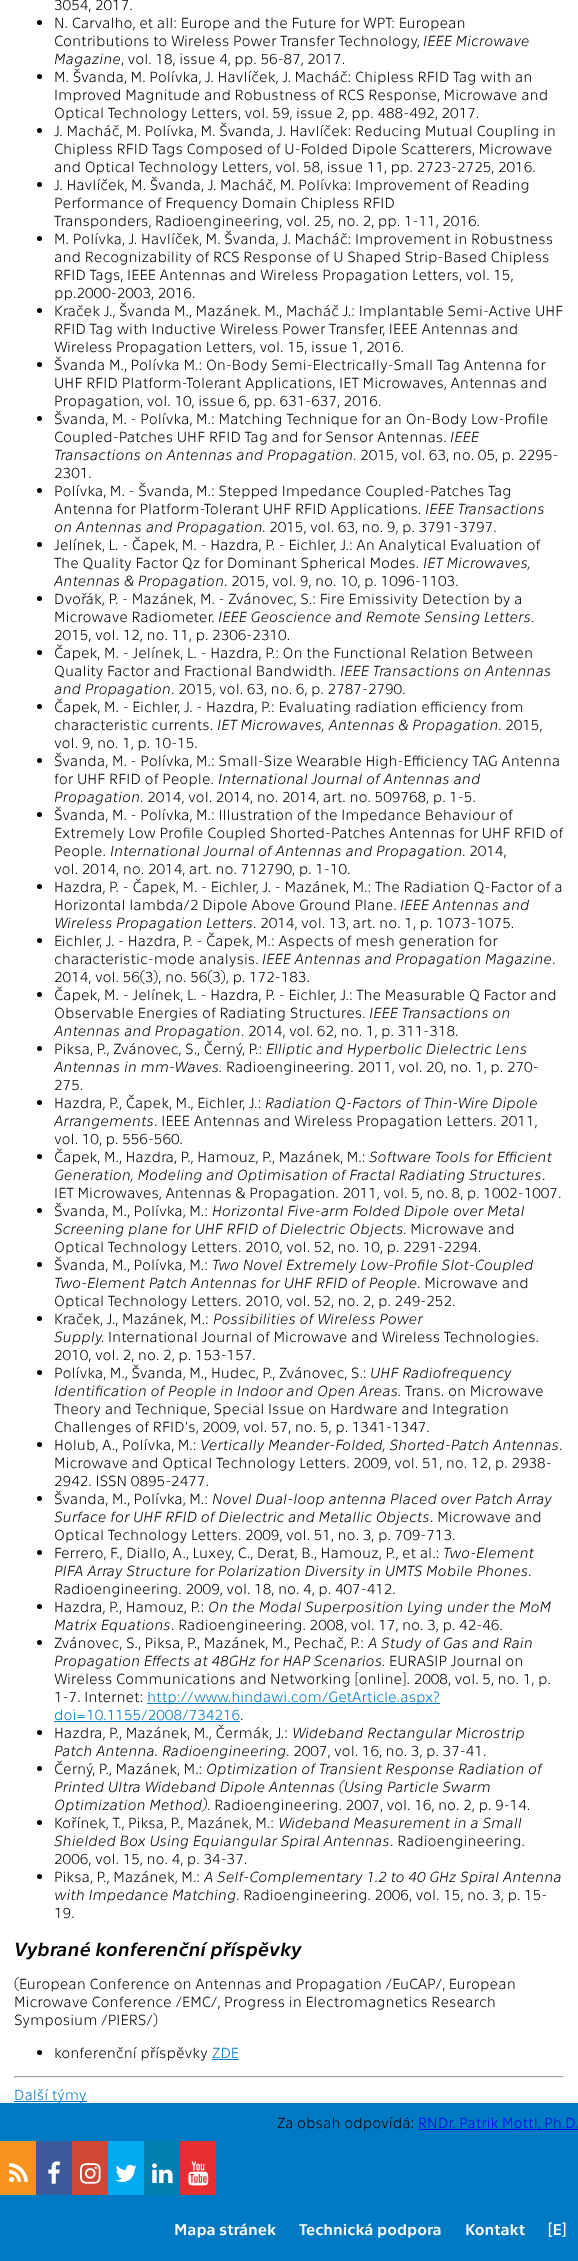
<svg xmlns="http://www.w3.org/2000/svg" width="578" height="2261">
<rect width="100%" height="100%" fill="#007ac3"/>
<rect width="578" height="2103" fill="#fff"/>
<text x="54" y="10" style="font-family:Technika;font-size:15.05px;font-weight:300;fill:#000">3054, 2017.</text>
<circle cx="39.5" cy="22.5" r="2.5" fill="#000"/>
<text x="54" y="28" style="font-family:Technika;font-size:15.05px;font-weight:300;fill:#000">N. Carvalho, et all: Europe and the Future for WPT: European</text>
<text x="54" y="46" style="font-family:Technika;font-size:15.05px;font-weight:300;fill:#000">Contributions to Wireless Power Transfer Technology,</text>
<text x="423" y="46" style="font-family:Technika;font-size:15.05px;font-weight:300;font-style:italic;fill:#000">IEEE Microwave</text>
<text x="54" y="64" style="font-family:Technika;font-size:15.05px;font-weight:300;font-style:italic;fill:#000">Magazine</text>
<text x="121" y="64" style="font-family:Technika;font-size:15.05px;font-weight:300;fill:#000">, vol. 18, issue 4, pp. 56-87, 2017.</text>
<circle cx="39.5" cy="76.5" r="2.5" fill="#000"/>
<text x="54" y="82" style="font-family:Technika;font-size:15.05px;font-weight:300;fill:#000">M. Švanda, M. Polívka, J. Havlíček, J. Macháč: Chipless RFID Tag with an</text>
<text x="54" y="100" style="font-family:Technika;font-size:15.05px;font-weight:300;fill:#000">Improved Magnitude and Robustness of RCS Response, Microwave and</text>
<text x="54" y="118" style="font-family:Technika;font-size:15.05px;font-weight:300;fill:#000">Optical Technology Letters, vol. 59, issue 2, pp. 488-492, 2017.</text>
<circle cx="39.5" cy="130.5" r="2.5" fill="#000"/>
<text x="54" y="136" style="font-family:Technika;font-size:15.05px;font-weight:300;fill:#000">J. Macháč, M. Polívka, M. Švanda, J. Havlíček: Reducing Mutual Coupling in</text>
<text x="54" y="154" style="font-family:Technika;font-size:15.05px;font-weight:300;fill:#000">Chipless RFID Tags Composed of U-Folded Dipole Scatterers, Microwave</text>
<text x="54" y="172" style="font-family:Technika;font-size:15.05px;font-weight:300;fill:#000">and Optical Technology Letters, vol. 58, issue 11, pp. 2723-2725, 2016.</text>
<circle cx="39.5" cy="184.5" r="2.5" fill="#000"/>
<text x="54" y="190" style="font-family:Technika;font-size:15.05px;font-weight:300;fill:#000">J. Havlíček, M. Švanda, J. Macháč, M. Polívka: Improvement of Reading</text>
<text x="54" y="208" style="font-family:Technika;font-size:15.05px;font-weight:300;fill:#000">Performance of Frequency Domain Chipless RFID</text>
<text x="54" y="226" style="font-family:Technika;font-size:15.05px;font-weight:300;fill:#000">Transponders, Radioengineering, vol. 25, no. 2, pp. 1-11, 2016.</text>
<circle cx="39.5" cy="238.5" r="2.5" fill="#000"/>
<text x="54" y="244" style="font-family:Technika;font-size:15.05px;font-weight:300;fill:#000">M. Polívka, J. Havlíček, M. Švanda, J. Macháč: Improvement in Robustness</text>
<text x="54" y="262" style="font-family:Technika;font-size:15.05px;font-weight:300;fill:#000">and Recognizability of RCS Response of U Shaped Strip-Based Chipless</text>
<text x="54" y="280" style="font-family:Technika;font-size:15.05px;font-weight:300;fill:#000">RFID Tags, IEEE Antennas and Wireless Propagation Letters, vol. 15,</text>
<text x="54" y="298" style="font-family:Technika;font-size:15.05px;font-weight:300;fill:#000">pp.2000-2003, 2016.</text>
<circle cx="39.5" cy="310.5" r="2.5" fill="#000"/>
<text x="54" y="316" style="font-family:Technika;font-size:15.05px;font-weight:300;fill:#000">Kraček J., Švanda M., Mazánek. M., Macháč J.: Implantable Semi-Active UHF</text>
<text x="54" y="334" style="font-family:Technika;font-size:15.05px;font-weight:300;fill:#000">RFID Tag with Inductive Wireless Power Transfer, IEEE Antennas and</text>
<text x="54" y="352" style="font-family:Technika;font-size:15.05px;font-weight:300;fill:#000">Wireless Propagation Letters, vol. 15, issue 1, 2016.</text>
<circle cx="39.5" cy="364.5" r="2.5" fill="#000"/>
<text x="54" y="370" style="font-family:Technika;font-size:15.05px;font-weight:300;fill:#000">Švanda M., Polívka M.: On-Body Semi-Electrically-Small Tag Antenna for</text>
<text x="54" y="388" style="font-family:Technika;font-size:15.05px;font-weight:300;fill:#000">UHF RFID Platform-Tolerant Applications, IET Microwaves, Antennas and</text>
<text x="54" y="406" style="font-family:Technika;font-size:15.05px;font-weight:300;fill:#000">Propagation, vol. 10, issue 6, pp. 631-637, 2016.</text>
<circle cx="39.5" cy="418.5" r="2.5" fill="#000"/>
<text x="54" y="424" style="font-family:Technika;font-size:15.05px;font-weight:300;fill:#000">Švanda, M. - Polívka, M.: Matching Technique for an On-Body Low-Profile</text>
<text x="54" y="442" style="font-family:Technika;font-size:15.05px;font-weight:300;fill:#000">Coupled-Patches UHF RFID Tag and for Sensor Antennas.</text>
<text x="450" y="442" style="font-family:Technika;font-size:15.05px;font-weight:300;font-style:italic;fill:#000">IEEE</text>
<text x="54" y="460" style="font-family:Technika;font-size:15.05px;font-weight:300;font-style:italic;fill:#000">Transactions on Antennas and Propagation</text>
<text x="353" y="460" style="font-family:Technika;font-size:15.05px;font-weight:300;fill:#000">. 2015, vol. 63, no. 05, p. 2295-</text>
<text x="54" y="478" style="font-family:Technika;font-size:15.05px;font-weight:300;fill:#000">2301.</text>
<circle cx="39.5" cy="490.5" r="2.5" fill="#000"/>
<text x="54" y="496" style="font-family:Technika;font-size:15.05px;font-weight:300;fill:#000">Polívka, M. - Švanda, M.: Stepped Impedance Coupled-Patches Tag</text>
<text x="54" y="514" style="font-family:Technika;font-size:15.05px;font-weight:300;fill:#000">Antenna for Platform-Tolerant UHF RFID Applications.</text>
<text x="425" y="514" style="font-family:Technika;font-size:15.05px;font-weight:300;font-style:italic;fill:#000">IEEE Transactions</text>
<text x="54" y="532" style="font-family:Technika;font-size:15.05px;font-weight:300;font-style:italic;fill:#000">on Antennas and Propagation</text>
<text x="262" y="532" style="font-family:Technika;font-size:15.05px;font-weight:300;fill:#000">. 2015, vol. 63, no. 9, p. 3791-3797.</text>
<circle cx="39.5" cy="544.5" r="2.5" fill="#000"/>
<text x="54" y="550" style="font-family:Technika;font-size:15.05px;font-weight:300;fill:#000">Jelínek, L. - Čapek, M. - Hazdra, P. - Eichler, J.: An Analytical Evaluation of</text>
<text x="54" y="568" style="font-family:Technika;font-size:15.05px;font-weight:300;fill:#000">The Quality Factor Qz for Dominant Spherical Modes.</text>
<text x="423" y="568" style="font-family:Technika;font-size:15.05px;font-weight:300;font-style:italic;fill:#000">IET Microwaves,</text>
<text x="54" y="586" style="font-family:Technika;font-size:15.05px;font-weight:300;font-style:italic;fill:#000">Antennas &amp; Propagation</text>
<text x="224" y="586" style="font-family:Technika;font-size:15.05px;font-weight:300;fill:#000">. 2015, vol. 9, no. 10, p. 1096-1103.</text>
<circle cx="39.5" cy="598.5" r="2.5" fill="#000"/>
<text x="54" y="604" style="font-family:Technika;font-size:15.05px;font-weight:300;fill:#000">Dvořák, P. - Mazánek, M. - Zvánovec, S.: Fire Emissivity Detection by a</text>
<text x="54" y="622" style="font-family:Technika;font-size:15.05px;font-weight:300;fill:#000">Microwave Radiometer.</text>
<text x="218" y="622" style="font-family:Technika;font-size:15.05px;font-weight:300;font-style:italic;fill:#000">IEEE Geoscience and Remote Sensing Letters</text>
<text x="531" y="622" style="font-family:Technika;font-size:15.05px;font-weight:300;fill:#000">.</text>
<text x="54" y="640" style="font-family:Technika;font-size:15.05px;font-weight:300;fill:#000">2015, vol. 12, no. 11, p. 2306-2310.</text>
<circle cx="39.5" cy="652.5" r="2.5" fill="#000"/>
<text x="54" y="658" style="font-family:Technika;font-size:15.05px;font-weight:300;fill:#000">Čapek, M. - Jelínek, L. - Hazdra, P.: On the Functional Relation Between</text>
<text x="54" y="676" style="font-family:Technika;font-size:15.05px;font-weight:300;fill:#000">Quality Factor and Fractional Bandwidth.</text>
<text x="340" y="676" style="font-family:Technika;font-size:15.05px;font-weight:300;font-style:italic;fill:#000">IEEE Transactions on Antennas</text>
<text x="54" y="694" style="font-family:Technika;font-size:15.05px;font-weight:300;font-style:italic;fill:#000">and Propagation</text>
<text x="171" y="694" style="font-family:Technika;font-size:15.05px;font-weight:300;fill:#000">. 2015, vol. 63, no. 6, p. 2787-2790.</text>
<circle cx="39.5" cy="706.5" r="2.5" fill="#000"/>
<text x="54" y="712" style="font-family:Technika;font-size:15.05px;font-weight:300;fill:#000">Čapek, M. - Eichler, J. - Hazdra, P.: Evaluating radiation efficiency from</text>
<text x="54" y="730" style="font-family:Technika;font-size:15.05px;font-weight:300;fill:#000">characteristic currents.</text>
<text x="217" y="730" style="font-family:Technika;font-size:15.05px;font-weight:300;font-style:italic;fill:#000">IET Microwaves, Antennas &amp; Propagation</text>
<text x="498" y="730" style="font-family:Technika;font-size:15.05px;font-weight:300;fill:#000">. 2015,</text>
<text x="54" y="748" style="font-family:Technika;font-size:15.05px;font-weight:300;fill:#000">vol. 9, no. 1, p. 10-15.</text>
<circle cx="39.5" cy="760.5" r="2.5" fill="#000"/>
<text x="54" y="766" style="font-family:Technika;font-size:15.05px;font-weight:300;fill:#000">Švanda, M. - Polívka, M.: Small-Size Wearable High-Efficiency TAG Antenna</text>
<text x="54" y="784" style="font-family:Technika;font-size:15.05px;font-weight:300;fill:#000">for UHF RFID of People.</text>
<text x="218" y="784" style="font-family:Technika;font-size:15.05px;font-weight:300;font-style:italic;fill:#000">International Journal of Antennas and</text>
<text x="54" y="802" style="font-family:Technika;font-size:15.05px;font-weight:300;font-style:italic;fill:#000">Propagation</text>
<text x="140" y="802" style="font-family:Technika;font-size:15.05px;font-weight:300;fill:#000">. 2014, vol. 2014, no. 2014, art. no. 509768, p. 1-5.</text>
<circle cx="39.5" cy="814.5" r="2.5" fill="#000"/>
<text x="54" y="820" style="font-family:Technika;font-size:15.05px;font-weight:300;fill:#000">Švanda, M. - Polívka, M.: Illustration of the Impedance Behaviour of</text>
<text x="54" y="838" style="font-family:Technika;font-size:15.05px;font-weight:300;fill:#000">Extremely Low Profile Coupled Shorted-Patches Antennas for UHF RFID of</text>
<text x="54" y="856" style="font-family:Technika;font-size:15.05px;font-weight:300;fill:#000">People.</text>
<text x="110" y="856" style="font-family:Technika;font-size:15.05px;font-weight:300;font-style:italic;fill:#000">International Journal of Antennas and Propagation</text>
<text x="462" y="856" style="font-family:Technika;font-size:15.05px;font-weight:300;fill:#000">. 2014,</text>
<text x="54" y="874" style="font-family:Technika;font-size:15.05px;font-weight:300;fill:#000">vol. 2014, no. 2014, art. no. 712790, p. 1-10.</text>
<circle cx="39.5" cy="886.5" r="2.5" fill="#000"/>
<text x="54" y="892" style="font-family:Technika;font-size:15.05px;font-weight:300;fill:#000">Hazdra, P. - Čapek, M. - Eichler, J. - Mazánek, M.: The Radiation Q-Factor of a</text>
<text x="54" y="910" style="font-family:Technika;font-size:15.05px;font-weight:300;fill:#000">Horizontal lambda/2 Dipole Above Ground Plane.</text>
<text x="400" y="910" style="font-family:Technika;font-size:15.05px;font-weight:300;font-style:italic;fill:#000">IEEE Antennas and</text>
<text x="54" y="928" style="font-family:Technika;font-size:15.05px;font-weight:300;font-style:italic;fill:#000">Wireless Propagation Letters</text>
<text x="253" y="928" style="font-family:Technika;font-size:15.05px;font-weight:300;fill:#000">. 2014, vol. 13, art. no. 1, p. 1073-1075.</text>
<circle cx="39.5" cy="940.5" r="2.5" fill="#000"/>
<text x="54" y="946" style="font-family:Technika;font-size:15.05px;font-weight:300;fill:#000">Eichler, J. - Hazdra, P. - Čapek, M.: Aspects of mesh generation for</text>
<text x="54" y="964" style="font-family:Technika;font-size:15.05px;font-weight:300;fill:#000">characteristic-mode analysis.</text>
<text x="262" y="964" style="font-family:Technika;font-size:15.05px;font-weight:300;font-style:italic;fill:#000">IEEE Antennas and Propagation Magazine</text>
<text x="552" y="964" style="font-family:Technika;font-size:15.05px;font-weight:300;fill:#000">.</text>
<text x="54" y="982" style="font-family:Technika;font-size:15.05px;font-weight:300;fill:#000">2014, vol. 56(3), no. 56(3), p. 172-183.</text>
<circle cx="39.5" cy="994.5" r="2.5" fill="#000"/>
<text x="54" y="1000" style="font-family:Technika;font-size:15.05px;font-weight:300;fill:#000">Čapek, M. - Jelínek, L. - Hazdra, P. - Eichler, J.: The Measurable Q Factor and</text>
<text x="54" y="1018" style="font-family:Technika;font-size:15.05px;font-weight:300;fill:#000">Observable Energies of Radiating Structures.</text>
<text x="369" y="1018" style="font-family:Technika;font-size:15.05px;font-weight:300;font-style:italic;fill:#000">IEEE Transactions on</text>
<text x="54" y="1036" style="font-family:Technika;font-size:15.05px;font-weight:300;font-style:italic;fill:#000">Antennas and Propagation</text>
<text x="241" y="1036" style="font-family:Technika;font-size:15.05px;font-weight:300;fill:#000">. 2014, vol. 62, no. 1, p. 311-318.</text>
<circle cx="39.5" cy="1048.5" r="2.5" fill="#000"/>
<text x="54" y="1054" style="font-family:Technika;font-size:15.05px;font-weight:300;fill:#000">Piksa, P., Zvánovec, S., Černý, P.:</text>
<text x="266" y="1054" style="font-family:Technika;font-size:15.05px;font-weight:300;font-style:italic;fill:#000">Elliptic and Hyperbolic Dielectric Lens</text>
<text x="54" y="1072" style="font-family:Technika;font-size:15.05px;font-weight:300;font-style:italic;fill:#000">Antennas in mm-Waves.</text>
<text x="226" y="1072" style="font-family:Technika;font-size:15.05px;font-weight:300;fill:#000">Radioengineering. 2011, vol. 20, no. 1, p. 270-</text>
<text x="54" y="1090" style="font-family:Technika;font-size:15.05px;font-weight:300;fill:#000">275.</text>
<circle cx="39.5" cy="1102.5" r="2.5" fill="#000"/>
<text x="54" y="1108" style="font-family:Technika;font-size:15.05px;font-weight:300;fill:#000">Hazdra, P., Čapek, M., Eichler, J.:</text>
<text x="265" y="1108" style="font-family:Technika;font-size:15.05px;font-weight:300;font-style:italic;fill:#000">Radiation Q-Factors of Thin-Wire Dipole</text>
<text x="54" y="1126" style="font-family:Technika;font-size:15.05px;font-weight:300;font-style:italic;fill:#000">Arrangements</text>
<text x="154" y="1126" style="font-family:Technika;font-size:15.05px;font-weight:300;fill:#000">. IEEE Antennas and Wireless Propagation Letters. 2011,</text>
<text x="54" y="1144" style="font-family:Technika;font-size:15.05px;font-weight:300;fill:#000">vol. 10, p. 556-560.</text>
<circle cx="39.5" cy="1156.5" r="2.5" fill="#000"/>
<text x="54" y="1162" style="font-family:Technika;font-size:15.05px;font-weight:300;fill:#000">Čapek, M., Hazdra, P., Hamouz, P., Mazánek, M.:</text>
<text x="369" y="1162" style="font-family:Technika;font-size:15.05px;font-weight:300;font-style:italic;fill:#000">Software Tools for Efficient</text>
<text x="54" y="1180" style="font-family:Technika;font-size:15.05px;font-weight:300;font-style:italic;fill:#000">Generation, Modeling and Optimisation of Fractal Radiating Structures</text>
<text x="542" y="1180" style="font-family:Technika;font-size:15.05px;font-weight:300;fill:#000">.</text>
<text x="54" y="1198" style="font-family:Technika;font-size:15.05px;font-weight:300;fill:#000">IET Microwaves, Antennas &amp; Propagation. 2011, vol. 5, no. 8, p. 1002-1007.</text>
<circle cx="39.5" cy="1210.5" r="2.5" fill="#000"/>
<text x="54" y="1216" style="font-family:Technika;font-size:15.05px;font-weight:300;fill:#000">Švanda, M., Polívka, M.:</text>
<text x="212" y="1216" style="font-family:Technika;font-size:15.05px;font-weight:300;font-style:italic;fill:#000">Horizontal Five-arm Folded Dipole over Metal</text>
<text x="54" y="1234" style="font-family:Technika;font-size:15.05px;font-weight:300;font-style:italic;fill:#000">Screening plane for UHF RFID of Dielectric Objects</text>
<text x="403" y="1234" style="font-family:Technika;font-size:15.05px;font-weight:300;fill:#000">. Microwave and</text>
<text x="54" y="1252" style="font-family:Technika;font-size:15.05px;font-weight:300;fill:#000">Optical Technology Letters. 2010, vol. 52, no. 10, p. 2291-2294.</text>
<circle cx="39.5" cy="1264.5" r="2.5" fill="#000"/>
<text x="54" y="1270" style="font-family:Technika;font-size:15.05px;font-weight:300;fill:#000">Švanda, M., Polívka, M.:</text>
<text x="212" y="1270" style="font-family:Technika;font-size:15.05px;font-weight:300;font-style:italic;fill:#000">Two Novel Extremely Low-Profile Slot-Coupled</text>
<text x="54" y="1288" style="font-family:Technika;font-size:15.05px;font-weight:300;font-style:italic;fill:#000">Two-Element Patch Antennas for UHF RFID of People</text>
<text x="417" y="1288" style="font-family:Technika;font-size:15.05px;font-weight:300;fill:#000">. Microwave and</text>
<text x="54" y="1306" style="font-family:Technika;font-size:15.05px;font-weight:300;fill:#000">Optical Technology Letters. 2010, vol. 52, no. 2, p. 249-252.</text>
<circle cx="39.5" cy="1318.5" r="2.5" fill="#000"/>
<text x="54" y="1324" style="font-family:Technika;font-size:15.05px;font-weight:300;fill:#000">Kraček, J., Mazánek, M.:</text>
<text x="213" y="1324" style="font-family:Technika;font-size:15.05px;font-weight:300;font-style:italic;fill:#000">Possibilities of Wireless Power</text>
<text x="54" y="1342" style="font-family:Technika;font-size:15.05px;font-weight:300;font-style:italic;fill:#000">Supply.</text>
<text x="108" y="1342" style="font-family:Technika;font-size:15.05px;font-weight:300;fill:#000">International Journal of Microwave and Wireless Technologies.</text>
<text x="54" y="1360" style="font-family:Technika;font-size:15.05px;font-weight:300;fill:#000">2010, vol. 2, no. 2, p. 153-157.</text>
<circle cx="39.5" cy="1372.5" r="2.5" fill="#000"/>
<text x="54" y="1378" style="font-family:Technika;font-size:15.05px;font-weight:300;fill:#000">Polívka, M., Švanda, M., Hudec, P., Zvánovec, S.:</text>
<text x="370" y="1378" style="font-family:Technika;font-size:15.05px;font-weight:300;font-style:italic;fill:#000">UHF Radiofrequency</text>
<text x="54" y="1396" style="font-family:Technika;font-size:15.05px;font-weight:300;font-style:italic;fill:#000">Identification of People in Indoor and Open Areas.</text>
<text x="405" y="1396" style="font-family:Technika;font-size:15.05px;font-weight:300;fill:#000">Trans. on Microwave</text>
<text x="54" y="1414" style="font-family:Technika;font-size:15.05px;font-weight:300;fill:#000">Theory and Technique, Special Issue on Hardware and Integration</text>
<text x="54" y="1432" style="font-family:Technika;font-size:15.05px;font-weight:300;fill:#000">Challenges of RFID's, 2009, vol. 57, no. 5, p. 1341-1347.</text>
<circle cx="39.5" cy="1444.5" r="2.5" fill="#000"/>
<text x="54" y="1450" style="font-family:Technika;font-size:15.05px;font-weight:300;fill:#000">Holub, A., Polívka, M.:</text>
<text x="200" y="1450" style="font-family:Technika;font-size:15.05px;font-weight:300;font-style:italic;fill:#000">Vertically Meander-Folded, Shorted-Patch Antennas</text>
<text x="559" y="1450" style="font-family:Technika;font-size:15.05px;font-weight:300;fill:#000">.</text>
<text x="54" y="1468" style="font-family:Technika;font-size:15.05px;font-weight:300;fill:#000">Microwave and Optical Technology Letters. 2009, vol. 51, no. 12, p. 2938-</text>
<text x="54" y="1486" style="font-family:Technika;font-size:15.05px;font-weight:300;fill:#000">2942. ISSN 0895-2477.</text>
<circle cx="39.5" cy="1498.5" r="2.5" fill="#000"/>
<text x="54" y="1504" style="font-family:Technika;font-size:15.05px;font-weight:300;fill:#000">Švanda, M., Polívka, M.:</text>
<text x="212" y="1504" style="font-family:Technika;font-size:15.05px;font-weight:300;font-style:italic;fill:#000">Novel Dual-loop antenna Placed over Patch Array</text>
<text x="54" y="1522" style="font-family:Technika;font-size:15.05px;font-weight:300;font-style:italic;fill:#000">Surface for UHF RFID of Dielectric and Metallic Objects</text>
<text x="430" y="1522" style="font-family:Technika;font-size:15.05px;font-weight:300;fill:#000">. Microwave and</text>
<text x="54" y="1540" style="font-family:Technika;font-size:15.05px;font-weight:300;fill:#000">Optical Technology Letters. 2009, vol. 51, no. 3, p. 709-713.</text>
<circle cx="39.5" cy="1552.5" r="2.5" fill="#000"/>
<text x="54" y="1558" style="font-family:Technika;font-size:15.05px;font-weight:300;fill:#000">Ferrero, F., Diallo, A., Luxey, C., Derat, B., Hamouz, P., et al.:</text>
<text x="443" y="1558" style="font-family:Technika;font-size:15.05px;font-weight:300;font-style:italic;fill:#000">Two-Element</text>
<text x="54" y="1576" style="font-family:Technika;font-size:15.05px;font-weight:300;font-style:italic;fill:#000">PIFA Array Structure for Polarization Diversity in UMTS Mobile Phones</text>
<text x="528" y="1576" style="font-family:Technika;font-size:15.05px;font-weight:300;fill:#000">.</text>
<text x="54" y="1594" style="font-family:Technika;font-size:15.05px;font-weight:300;fill:#000">Radioengineering. 2009, vol. 18, no. 4, p. 407-412.</text>
<circle cx="39.5" cy="1606.5" r="2.5" fill="#000"/>
<text x="54" y="1612" style="font-family:Technika;font-size:15.05px;font-weight:300;fill:#000">Hazdra, P., Hamouz, P.:</text>
<text x="208" y="1612" style="font-family:Technika;font-size:15.05px;font-weight:300;font-style:italic;fill:#000">On the Modal Superposition Lying under the MoM</text>
<text x="54" y="1630" style="font-family:Technika;font-size:15.05px;font-weight:300;font-style:italic;fill:#000">Matrix Equations</text>
<text x="171" y="1630" style="font-family:Technika;font-size:15.05px;font-weight:300;fill:#000">. Radioengineering. 2008, vol. 17, no. 3, p. 42-46.</text>
<circle cx="39.5" cy="1642.5" r="2.5" fill="#000"/>
<text x="54" y="1648" style="font-family:Technika;font-size:15.05px;font-weight:300;fill:#000">Zvánovec, S., Piksa, P., Mazánek, M., Pechač, P.:</text>
<text x="368" y="1648" style="font-family:Technika;font-size:15.05px;font-weight:300;font-style:italic;fill:#000">A Study of Gas and Rain</text>
<text x="54" y="1666" style="font-family:Technika;font-size:15.05px;font-weight:300;font-style:italic;fill:#000">Propagation Effects at 48GHz for HAP Scenarios.</text>
<text x="389" y="1666" style="font-family:Technika;font-size:15.05px;font-weight:300;fill:#000">EURASIP Journal on</text>
<text x="54" y="1684" style="font-family:Technika;font-size:15.05px;font-weight:300;fill:#000">Wireless Communications and Networking [online]. 2008, vol. 5, no. 1, p.</text>
<text x="54" y="1702" style="font-family:Technika;font-size:15.05px;font-weight:300;fill:#000">1-7. Internet:</text>
<rect x="147" y="1703" width="293" height="1" fill="#007ac3"/>
<text x="147" y="1702" style="font-family:Technika;font-size:15.05px;font-weight:300;fill:#007ac3">http://www.hindawi.com/GetArticle.aspx?</text>
<text x="54" y="1720" style="font-family:Technika;font-size:15.05px;font-weight:300;fill:#007ac3">doi=10.1155/2008/734216</text>
<rect x="54" y="1721" width="186" height="1" fill="#007ac3"/>
<text x="240" y="1720" style="font-family:Technika;font-size:15.05px;font-weight:300;fill:#000">.</text>
<circle cx="39.5" cy="1732.5" r="2.5" fill="#000"/>
<text x="54" y="1738" style="font-family:Technika;font-size:15.05px;font-weight:300;fill:#000">Hazdra, P., Mazánek, M., Čermák, J.:</text>
<text x="292" y="1738" style="font-family:Technika;font-size:15.05px;font-weight:300;font-style:italic;fill:#000">Wideband Rectangular Microstrip</text>
<text x="54" y="1756" style="font-family:Technika;font-size:15.05px;font-weight:300;font-style:italic;fill:#000">Patch Antenna. Radioengineering</text>
<text x="286" y="1756" style="font-family:Technika;font-size:15.05px;font-weight:300;fill:#000">. 2007, vol. 16, no. 3, p. 37-41.</text>
<circle cx="39.5" cy="1768.5" r="2.5" fill="#000"/>
<text x="54" y="1774" style="font-family:Technika;font-size:15.05px;font-weight:300;fill:#000">Černý, P., Mazánek, M.:</text>
<text x="206" y="1774" style="font-family:Technika;font-size:15.05px;font-weight:300;font-style:italic;fill:#000">Optimization of Transient Response Radiation of</text>
<text x="54" y="1792" style="font-family:Technika;font-size:15.05px;font-weight:300;font-style:italic;fill:#000">Printed Ultra Wideband Dipole Antennas (Using Particle Swarm</text>
<text x="54" y="1810" style="font-family:Technika;font-size:15.05px;font-weight:300;font-style:italic;fill:#000">Optimization Method)</text>
<text x="207" y="1810" style="font-family:Technika;font-size:15.05px;font-weight:300;fill:#000">. Radioengineering. 2007, vol. 16, no. 2, p. 9-14.</text>
<circle cx="39.5" cy="1822.5" r="2.5" fill="#000"/>
<text x="54" y="1828" style="font-family:Technika;font-size:15.05px;font-weight:300;fill:#000">Kořínek, T., Piksa, P., Mazánek, M.:</text>
<text x="278" y="1828" style="font-family:Technika;font-size:15.05px;font-weight:300;font-style:italic;fill:#000">Wideband Measurement in a Small</text>
<text x="54" y="1846" style="font-family:Technika;font-size:15.05px;font-weight:300;font-style:italic;fill:#000">Shielded Box Using Equiangular Spiral Antennas</text>
<text x="390" y="1846" style="font-family:Technika;font-size:15.05px;font-weight:300;fill:#000">. Radioengineering.</text>
<text x="54" y="1864" style="font-family:Technika;font-size:15.05px;font-weight:300;fill:#000">2006, vol. 15, no. 4, p. 34-37.</text>
<circle cx="39.5" cy="1876.5" r="2.5" fill="#000"/>
<text x="54" y="1882" style="font-family:Technika;font-size:15.05px;font-weight:300;fill:#000">Piksa, P., Mazánek, M.:</text>
<text x="204" y="1882" style="font-family:Technika;font-size:15.05px;font-weight:300;font-style:italic;fill:#000">A Self-Complementary 1.2 to 40 GHz Spiral Antenna</text>
<text x="54" y="1900" style="font-family:Technika;font-size:15.05px;font-weight:300;font-style:italic;fill:#000">with Impedance Matching</text>
<text x="236" y="1900" style="font-family:Technika;font-size:15.05px;font-weight:300;fill:#000">. Radioengineering. 2006, vol. 15, no. 3, p. 15-</text>
<text x="54" y="1918" style="font-family:Technika;font-size:15.05px;font-weight:300;fill:#000">19.</text>
<text x="14" y="1956" style="font-family:Technika;font-size:19.6px;font-style:italic;fill:#000">Vybrané konferenční příspěvky</text>
<text x="14" y="1989" style="font-family:Technika;font-size:15.05px;font-weight:300;fill:#000">(European Conference on Antennas and Propagation /EuCAP/, European</text>
<text x="14" y="2007" style="font-family:Technika;font-size:15.05px;font-weight:300;fill:#000">Microwave Conference /EMC/, Progress in Electromagnetics Research</text>
<text x="14" y="2025" style="font-family:Technika;font-size:15.05px;font-weight:300;fill:#000">Symposium /PIERS/)</text>
<circle cx="39.5" cy="2052.5" r="2.5" fill="#000"/>
<text x="54" y="2058" style="font-family:Technika;font-size:15.05px;font-weight:300;fill:#000">konferenční příspěvky</text>
<text x="212" y="2058" style="font-family:Technika;font-size:15.05px;font-weight:300;fill:#007ac3">ZDE</text>
<rect x="212" y="2059" width="27" height="1" fill="#007ac3"/>
<rect x="14" y="2076" width="550" height="1" fill="#9f9f9f"/>
<rect x="563" y="2076" width="1" height="2" fill="#eee"/>
<rect x="14" y="2077" width="550" height="1" fill="#eee"/>
<rect x="14" y="2076" width="1" height="2" fill="#9f9f9f"/>
<rect x="14" y="2101" width="73" height="1" fill="#007ac3"/>
<text x="14" y="2100" style="font-family:Technika;font-size:15.05px;font-weight:300;fill:#007ac3">Další týmy</text>
<text x="277" y="2128" style="font-family:Technika;font-size:15.05px;font-weight:300;fill:#000">Za obsah odpovídá:</text>
<rect x="418" y="2129" width="160" height="1" fill="#00e"/>
<text x="418" y="2128" style="font-family:Technika;font-size:15.05px;font-weight:300;fill:#00e">RNDr. Patrik Mottl, Ph.D.</text>
<rect y="2141" width="36" height="54" fill="#f7941d"/>
<image x="9" y="2163" width="19" height="19" href="media/1.png"/>
<rect x="36" y="2141" width="36" height="54" fill="#3b5998"/>
<image x="48" y="2161" width="12" height="23" href="media/2.png"/>
<rect x="72" y="2141" width="36" height="54" fill="#d14836"/>
<image x="80" y="2163" width="21" height="21" href="media/3.png"/>
<rect x="108" y="2141" width="36" height="54" fill="#00aced"/>
<image x="115" y="2164" width="22" height="18" href="media/4.png"/>
<rect x="144" y="2141" width="36" height="54" fill="#007fb1"/>
<image x="152" y="2163" width="21" height="21" href="media/5.png"/>
<rect x="180" y="2141" width="36" height="54" fill="#e62e30"/>
<image x="188" y="2161" width="21" height="25" href="media/6.png"/>
<text x="174" y="2235" style="font-family:Technika;font-size:16px;fill:#fff">Mapa stránek</text>
<text x="299" y="2235" style="font-family:Technika;font-size:16px;fill:#fff">Technická podpora</text>
<text x="465" y="2235" style="font-family:Technika;font-size:16px;fill:#fff">Kontakt</text>
<text x="548" y="2235" style="font-family:Technika;font-size:16px;fill:#fff">[E]</text>
</svg>
